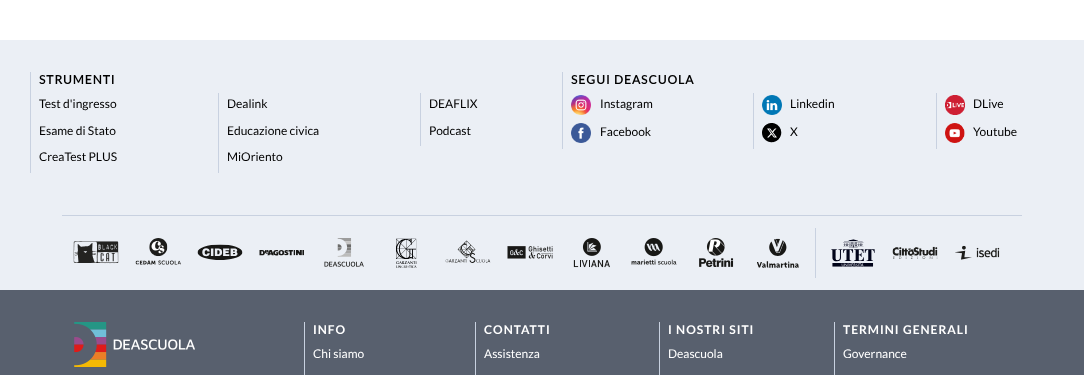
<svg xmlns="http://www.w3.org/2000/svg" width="1084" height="375">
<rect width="100%" height="100%" fill="#fff"/>
<rect y="40" width="1084" height="250" fill="#ebeff5"/>
<rect x="30" y="72" width="1" height="101" fill="#c8d1e0"/>
<text x="39" y="84" style="font-family:Lato;font-size:12px;font-weight:bold;letter-spacing:1px;fill:#000">STRUMENTI</text>
<text x="39" y="108" style="font-family:Lato;font-size:12px;fill:#000">Test d'ingresso</text>
<rect x="218" y="93" width="1" height="80" fill="#c8d1e0"/>
<text x="227" y="108" style="font-family:Lato;font-size:12px;fill:#000">Dealink</text>
<rect x="420" y="93" width="1" height="53" fill="#c8d1e0"/>
<text x="429" y="108" style="font-family:Lato;font-size:12px;fill:#000">DEAFLIX</text>
<text x="39" y="135" style="font-family:Lato;font-size:12px;fill:#000">Esame di Stato</text>
<text x="227" y="135" style="font-family:Lato;font-size:12px;fill:#000">Educazione civica</text>
<text x="429" y="135" style="font-family:Lato;font-size:12px;fill:#000">Podcast</text>
<text x="39" y="161" style="font-family:Lato;font-size:12px;fill:#000">CreaTest PLUS</text>
<text x="227" y="161" style="font-family:Lato;font-size:12px;fill:#000">MiOriento</text>
<rect x="562" y="72" width="1" height="77" fill="#c8d1e0"/>
<text x="571" y="84" style="font-family:Lato;font-size:12px;font-weight:bold;letter-spacing:1px;fill:#000">SEGUI DEASCUOLA</text>
<image x="571" y="95" width="20" height="20" href="media/1.png"/>
<text x="600" y="108" style="font-family:Lato;font-size:12px;fill:#000">Instagram</text>
<rect x="753" y="93" width="1" height="56" fill="#c8d1e0"/>
<image x="762" y="95" width="20" height="20" href="media/2.png"/>
<text x="790" y="108" style="font-family:Lato;font-size:12px;fill:#000">Linkedin</text>
<rect x="936" y="93" width="1" height="56" fill="#c8d1e0"/>
<image x="945" y="95" width="20" height="20" href="media/3.png"/>
<text x="973" y="108" style="font-family:Lato;font-size:12px;fill:#000">DLive</text>
<image x="571" y="123" width="20" height="20" href="media/4.png"/>
<text x="600" y="136" style="font-family:Lato;font-size:12px;fill:#000">Facebook</text>
<image x="762" y="123" width="20" height="20" href="media/5.png"/>
<text x="790" y="136" style="font-family:Lato;font-size:12px;fill:#000">X</text>
<image x="945" y="123" width="20" height="20" href="media/6.png"/>
<text x="973" y="136" style="font-family:Lato;font-size:12px;fill:#000">Youtube</text>
<rect x="62" y="215" width="960" height="1" fill="#c8d1e0"/>
<image x="73" y="241" width="46" height="23" href="media/7.png"/>
<image x="135" y="238" width="46" height="27" href="media/8.png"/>
<image x="197" y="244" width="46" height="16" href="media/9.png"/>
<image x="259" y="250" width="45" height="6" href="media/10.png"/>
<image x="324" y="238" width="40" height="29" href="media/11.png"/>
<image x="396" y="238" width="21" height="30" href="media/12.png"/>
<image x="445" y="240" width="46" height="23" href="media/13.png"/>
<image x="507" y="246" width="46" height="13" href="media/14.png"/>
<image x="573" y="238" width="37" height="30" href="media/15.png"/>
<image x="631" y="238" width="46" height="27" href="media/16.png"/>
<image x="699" y="238" width="35" height="30" href="media/17.png"/>
<image x="757" y="238" width="42" height="30" href="media/18.png"/>
<rect x="815" y="228" width="1" height="50" fill="#c8d1e0"/>
<image x="831" y="239" width="44" height="28" href="media/19.png"/>
<image x="892" y="246" width="46" height="13" href="media/20.png"/>
<image x="955" y="245" width="45" height="15" href="media/21.png"/>
<rect y="290" width="1084" height="85" fill="#58606e"/>
<image x="74" y="322" width="121" height="45" href="media/22.png"/>
<rect x="304" y="322" width="1" height="53" fill="#c8d1e0"/>
<text x="313" y="334" style="font-family:'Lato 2';font-size:12px;font-weight:bold;letter-spacing:1px;fill:#fff">INFO</text>
<text x="313" y="358" style="font-family:Lato;font-size:12px;fill:#fff">Chi siamo</text>
<rect x="475" y="322" width="1" height="53" fill="#c8d1e0"/>
<text x="484" y="334" style="font-family:'Lato 2';font-size:12px;font-weight:bold;letter-spacing:1px;fill:#fff">CONTATTI</text>
<text x="484" y="358" style="font-family:Lato;font-size:12px;fill:#fff">Assistenza</text>
<rect x="659" y="322" width="1" height="53" fill="#c8d1e0"/>
<text x="668" y="334" style="font-family:'Lato 2';font-size:12px;font-weight:bold;letter-spacing:1px;fill:#fff">I NOSTRI SITI</text>
<text x="668" y="358" style="font-family:Lato;font-size:12px;fill:#fff">Deascuola</text>
<rect x="834" y="322" width="1" height="53" fill="#c8d1e0"/>
<text x="843" y="334" style="font-family:'Lato 2';font-size:12px;font-weight:bold;letter-spacing:1px;fill:#fff">TERMINI GENERALI</text>
<text x="843" y="358" style="font-family:Lato;font-size:12px;fill:#fff">Governance</text>
</svg>
